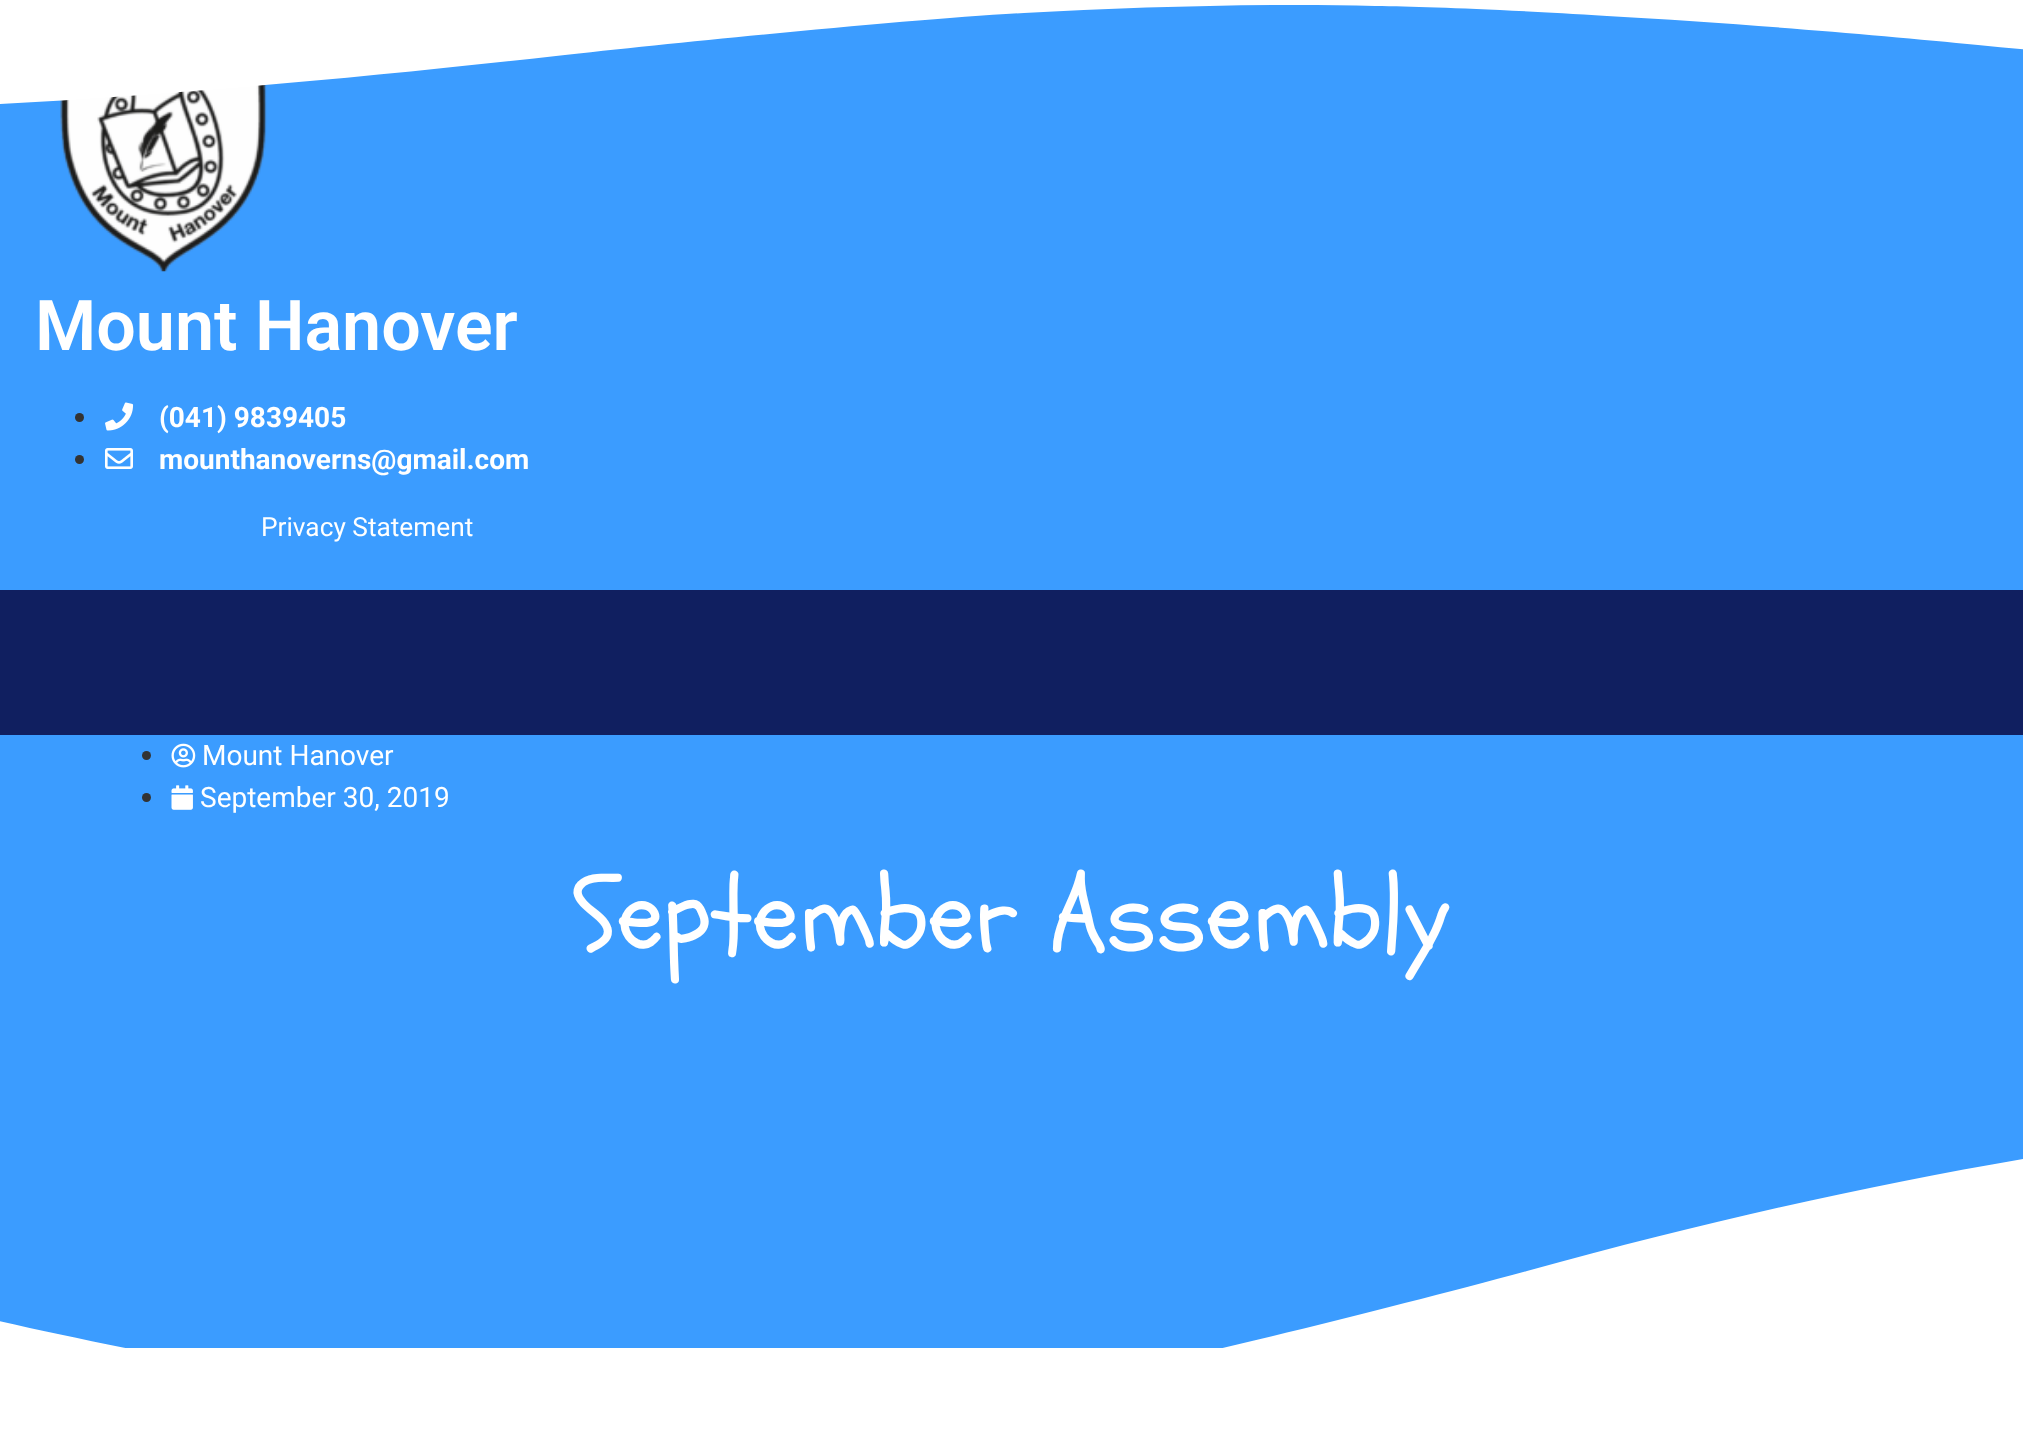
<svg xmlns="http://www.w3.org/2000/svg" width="2023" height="1430">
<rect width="100%" height="100%" fill="#fff"/>
<rect y="5" width="2023" height="585" fill="#3b9cff"/>
<image x="60" y="84" width="207" height="188" href="media/1.png"/>
<text x="35" y="350" style="font-family:Roboto;font-size:70px;font-weight:600;fill:#fff">Mount Hanover</text>
<circle cx="79.5" cy="417.5" r="4.5" fill="#333"/>
<image x="105" y="402" width="29" height="29" href="media/2.png"/>
<text x="159" y="427" style="font-family:Roboto;font-size:28px;font-weight:bold;fill:#fff">(041) 9839405</text>
<circle cx="79.5" cy="459.5" r="4.5" fill="#333"/>
<image x="105" y="448" width="28" height="21" href="media/3.png"/>
<text x="159" y="469" style="font-family:Roboto;font-size:28px;font-weight:bold;fill:#fff">mounthanoverns@gmail.com</text>
<text x="261" y="536" style="font-family:Roboto;font-size:26.25px;fill:#fff">Privacy Statement</text>
<rect y="590" width="2023" height="145" fill="#101f60"/>
<path d="M1375 6c-105-3-240 1-351 7c-110 6-330 28-468 43c-353 40-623 55-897 61c-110 3-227 5-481-3c-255-7-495-31-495-31v-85h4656v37c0 0-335 40-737 38c-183-1-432-8-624-28c-99-10-243-22-371-29c-127-8-184-9-232-10z" fill="#fff"/>
<rect y="735" width="2023" height="613" fill="#3b9cff"/>
<circle cx="146.5" cy="755.5" r="4.5" fill="#333"/>
<image x="171" y="743" width="25" height="25" href="media/4.png"/>
<text x="202" y="765" style="font-family:Roboto;font-size:28px;fill:#fff">Mount Hanover</text>
<circle cx="146.5" cy="797.5" r="4.5" fill="#333"/>
<image x="171" y="785" width="22" height="25" href="media/5.png"/>
<text x="200" y="807" style="font-family:Roboto;font-size:28px;fill:#fff">September 30, 2019</text>
<text x="574" y="950" style="font-family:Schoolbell;font-size:105px;fill:#fff">September Assembly</text>
<path d="M601 1411c118 9 271-1 397-18c124-17 373-80 529-122c399-110 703-152 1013-169c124-8 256-12 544 8c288 21 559 87 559 87v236h-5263v-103c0 0 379-111 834-104c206 2 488 23 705 76c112 28 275 62 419 83c144 21 208 23 263 26z" fill="#fff"/>
</svg>
